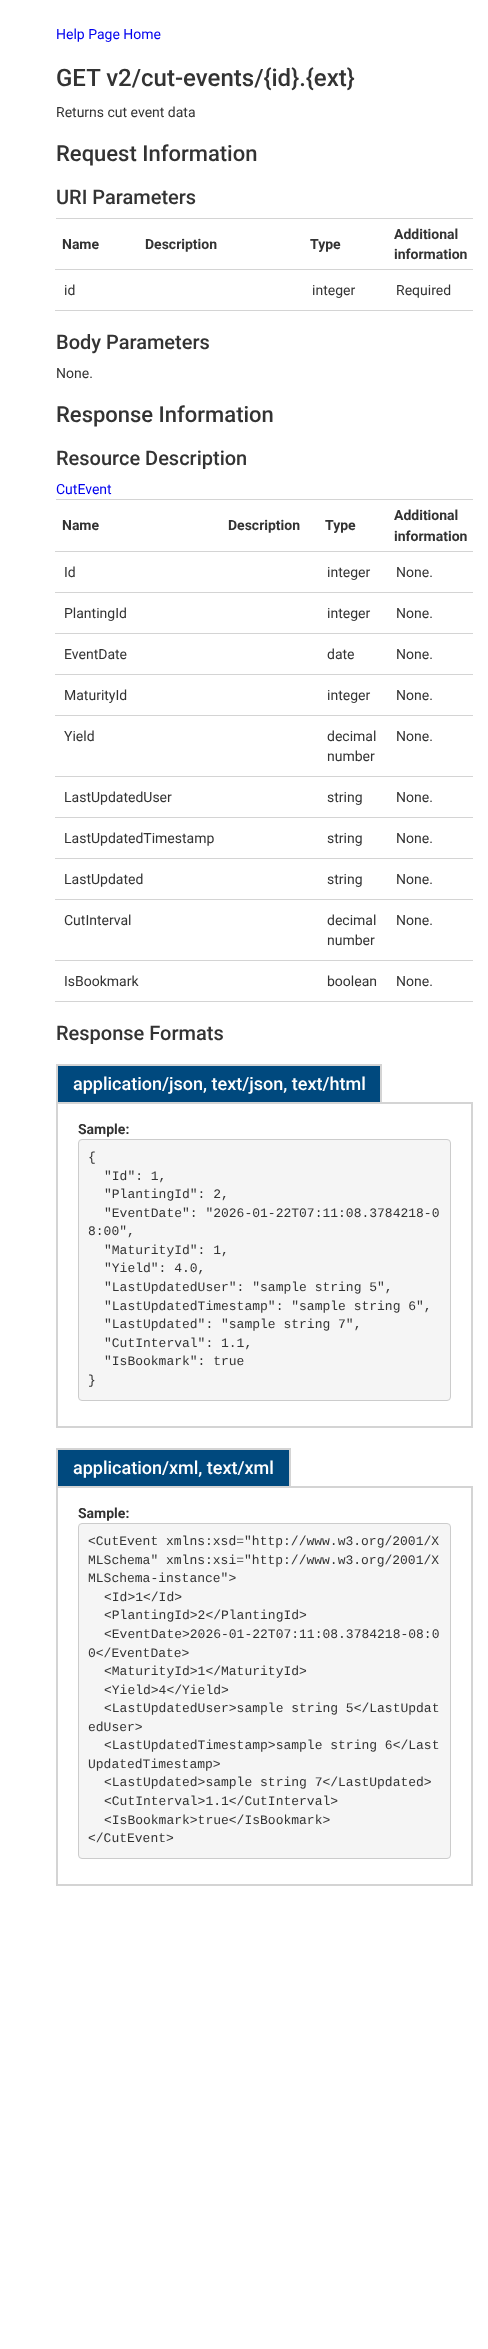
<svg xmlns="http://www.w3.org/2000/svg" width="488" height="2349">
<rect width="100%" height="100%" fill="#fff"/>
<text x="56" y="39" style="font-family:Roboto;font-size:14px;fill:#00e">Help Page Home</text>
<text x="56" y="86" style="font-family:Roboto;font-size:24px;font-weight:500;fill:#333">GET v2/cut-events/{id}.{ext}</text>
<text x="56" y="117" style="font-family:Roboto;font-size:14px;fill:#333">Returns cut event data</text>
<text x="56" y="161" style="font-family:Roboto;font-size:22px;font-weight:500;fill:#333">Request Information</text>
<text x="56" y="204" style="font-family:Roboto;font-size:20px;font-weight:500;fill:#333">URI Parameters</text>
<rect x="56" y="218" width="417" height="1" fill="#d4d4d4"/>
<text x="62" y="249" style="font-family:Roboto;font-size:14px;font-weight:bold;fill:#333">Name</text>
<text x="145" y="249" style="font-family:Roboto;font-size:14px;font-weight:bold;fill:#333">Description</text>
<text x="310" y="249" style="font-family:Roboto;font-size:14px;font-weight:bold;fill:#333">Type</text>
<rect x="55" y="269" width="418" height="1" fill="#d4d4d4"/>
<text x="394" y="239" style="font-family:Roboto;font-size:14px;font-weight:bold;fill:#333">Additional</text>
<text x="394" y="259" style="font-family:Roboto;font-size:14px;font-weight:bold;fill:#333">information</text>
<text x="64" y="295" style="font-family:Roboto;font-size:14px;fill:#333">id</text>
<text x="312" y="295" style="font-family:Roboto;font-size:14px;fill:#333">integer</text>
<rect x="55" y="310" width="418" height="1" fill="#d4d4d4"/>
<text x="396" y="295" style="font-family:Roboto;font-size:14px;fill:#333">Required</text>
<text x="56" y="349" style="font-family:Roboto;font-size:20px;font-weight:500;fill:#333">Body Parameters</text>
<text x="56" y="378" style="font-family:Roboto;font-size:14px;fill:#333">None.</text>
<text x="56" y="422" style="font-family:Roboto;font-size:22px;font-weight:500;fill:#333">Response Information</text>
<text x="56" y="465" style="font-family:Roboto;font-size:20px;font-weight:500;fill:#333">Resource Description</text>
<text x="56" y="494" style="font-family:Roboto;font-size:14px;fill:#00e">CutEvent</text>
<rect x="56" y="499" width="417" height="1" fill="#d4d4d4"/>
<text x="62" y="530" style="font-family:Roboto;font-size:14px;font-weight:bold;fill:#333">Name</text>
<text x="228" y="530" style="font-family:Roboto;font-size:14px;font-weight:bold;fill:#333">Description</text>
<text x="325" y="530" style="font-family:Roboto;font-size:14px;font-weight:bold;fill:#333">Type</text>
<rect x="55" y="551" width="418" height="1" fill="#d4d4d4"/>
<text x="394" y="520" style="font-family:Roboto;font-size:14px;font-weight:bold;fill:#333">Additional</text>
<text x="394" y="541" style="font-family:Roboto;font-size:14px;font-weight:bold;fill:#333">information</text>
<text x="64" y="577" style="font-family:Roboto;font-size:14px;fill:#333">Id</text>
<text x="327" y="577" style="font-family:Roboto;font-size:14px;fill:#333">integer</text>
<rect x="55" y="592" width="418" height="1" fill="#d4d4d4"/>
<text x="396" y="577" style="font-family:Roboto;font-size:14px;fill:#333">None.</text>
<text x="64" y="618" style="font-family:Roboto;font-size:14px;fill:#333">PlantingId</text>
<text x="327" y="618" style="font-family:Roboto;font-size:14px;fill:#333">integer</text>
<rect x="55" y="633" width="418" height="1" fill="#d4d4d4"/>
<text x="396" y="618" style="font-family:Roboto;font-size:14px;fill:#333">None.</text>
<text x="64" y="659" style="font-family:Roboto;font-size:14px;fill:#333">EventDate</text>
<text x="327" y="659" style="font-family:Roboto;font-size:14px;fill:#333">date</text>
<rect x="55" y="674" width="418" height="1" fill="#d4d4d4"/>
<text x="396" y="659" style="font-family:Roboto;font-size:14px;fill:#333">None.</text>
<text x="64" y="700" style="font-family:Roboto;font-size:14px;fill:#333">MaturityId</text>
<text x="327" y="700" style="font-family:Roboto;font-size:14px;fill:#333">integer</text>
<rect x="55" y="715" width="418" height="1" fill="#d4d4d4"/>
<text x="396" y="700" style="font-family:Roboto;font-size:14px;fill:#333">None.</text>
<text x="64" y="741" style="font-family:Roboto;font-size:14px;fill:#333">Yield</text>
<text x="327" y="741" style="font-family:Roboto;font-size:14px;fill:#333">decimal</text>
<text x="327" y="761" style="font-family:Roboto;font-size:14px;fill:#333">number</text>
<rect x="55" y="776" width="418" height="1" fill="#d4d4d4"/>
<text x="396" y="741" style="font-family:Roboto;font-size:14px;fill:#333">None.</text>
<text x="64" y="802" style="font-family:Roboto;font-size:14px;fill:#333">LastUpdatedUser</text>
<text x="327" y="802" style="font-family:Roboto;font-size:14px;fill:#333">string</text>
<rect x="55" y="817" width="418" height="1" fill="#d4d4d4"/>
<text x="396" y="802" style="font-family:Roboto;font-size:14px;fill:#333">None.</text>
<text x="64" y="843" style="font-family:Roboto;font-size:14px;fill:#333">LastUpdatedTimestamp</text>
<text x="327" y="843" style="font-family:Roboto;font-size:14px;fill:#333">string</text>
<rect x="55" y="858" width="418" height="1" fill="#d4d4d4"/>
<text x="396" y="843" style="font-family:Roboto;font-size:14px;fill:#333">None.</text>
<text x="64" y="884" style="font-family:Roboto;font-size:14px;fill:#333">LastUpdated</text>
<text x="327" y="884" style="font-family:Roboto;font-size:14px;fill:#333">string</text>
<rect x="55" y="899" width="418" height="1" fill="#d4d4d4"/>
<text x="396" y="884" style="font-family:Roboto;font-size:14px;fill:#333">None.</text>
<text x="64" y="925" style="font-family:Roboto;font-size:14px;fill:#333">CutInterval</text>
<text x="327" y="925" style="font-family:Roboto;font-size:14px;fill:#333">decimal</text>
<text x="327" y="945" style="font-family:Roboto;font-size:14px;fill:#333">number</text>
<rect x="55" y="960" width="418" height="1" fill="#d4d4d4"/>
<text x="396" y="925" style="font-family:Roboto;font-size:14px;fill:#333">None.</text>
<text x="64" y="986" style="font-family:Roboto;font-size:14px;fill:#333">IsBookmark</text>
<text x="327" y="986" style="font-family:Roboto;font-size:14px;fill:#333">boolean</text>
<rect x="55" y="1001" width="418" height="1" fill="#d4d4d4"/>
<text x="396" y="986" style="font-family:Roboto;font-size:14px;fill:#333">None.</text>
<text x="56" y="1040" style="font-family:Roboto;font-size:20px;font-weight:500;fill:#333">Response Formats</text>
<rect x="58" y="1066" width="322" height="36" fill="#00497e"/>
<rect x="56" y="1064" width="326" height="2" fill="#d4d4d4"/>
<rect x="380" y="1064" width="2" height="38" fill="#d4d4d4"/>
<rect x="56" y="1064" width="2" height="38" fill="#d4d4d4"/>
<text x="73" y="1090" style="font-family:Roboto;font-size:18px;font-weight:500;fill:#fff">application/json, text/json, text/html</text>
<rect x="57" y="1103" width="415" height="324" fill="none" stroke="#d4d4d4" stroke-width="2"/>
<text x="78" y="1134" style="font-family:Roboto;font-size:14px;font-weight:bold;fill:#333">Sample:</text>
<rect x="78.5" y="1139.5" width="372" height="261" rx="3.5" fill="#f5f5f5" stroke="#ccc"/>
<text x="88" y="1161" style="font-family:Liberation Mono;font-size:13px;fill:#333">{</text>
<text x="104" y="1180" style="font-family:Liberation Mono;font-size:13px;fill:#333">"Id": 1,</text>
<text x="104" y="1198" style="font-family:Liberation Mono;font-size:13px;fill:#333">"PlantingId": 2,</text>
<text x="104" y="1217" style="font-family:Liberation Mono;font-size:13px;fill:#333">"EventDate": "2026-01-22T07:11:08.3784218-0</text>
<text x="88" y="1235" style="font-family:Liberation Mono;font-size:13px;fill:#333">8:00",</text>
<text x="104" y="1254" style="font-family:Liberation Mono;font-size:13px;fill:#333">"MaturityId": 1,</text>
<text x="104" y="1272" style="font-family:Liberation Mono;font-size:13px;fill:#333">"Yield": 4.0,</text>
<text x="104" y="1291" style="font-family:Liberation Mono;font-size:13px;fill:#333">"LastUpdatedUser": "sample string 5",</text>
<text x="104" y="1310" style="font-family:Liberation Mono;font-size:13px;fill:#333">"LastUpdatedTimestamp": "sample string 6",</text>
<text x="104" y="1328" style="font-family:Liberation Mono;font-size:13px;fill:#333">"LastUpdated": "sample string 7",</text>
<text x="104" y="1347" style="font-family:Liberation Mono;font-size:13px;fill:#333">"CutInterval": 1.1,</text>
<text x="104" y="1365" style="font-family:Liberation Mono;font-size:13px;fill:#333">"IsBookmark": true</text>
<text x="88" y="1384" style="font-family:Liberation Mono;font-size:13px;fill:#333">}</text>
<rect x="58" y="1450" width="231" height="36" fill="#00497e"/>
<rect x="56" y="1448" width="235" height="2" fill="#d4d4d4"/>
<rect x="289" y="1448" width="2" height="38" fill="#d4d4d4"/>
<rect x="56" y="1448" width="2" height="38" fill="#d4d4d4"/>
<text x="73" y="1474" style="font-family:Roboto;font-size:18px;font-weight:500;fill:#fff">application/xml, text/xml</text>
<rect x="57" y="1487" width="415" height="398" fill="none" stroke="#d4d4d4" stroke-width="2"/>
<text x="78" y="1518" style="font-family:Roboto;font-size:14px;font-weight:bold;fill:#333">Sample:</text>
<rect x="78.5" y="1523.5" width="372" height="335" rx="3.5" fill="#f5f5f5" stroke="#ccc"/>
<text x="88" y="1545" style="font-family:Liberation Mono;font-size:13px;fill:#333">&lt;CutEvent xmlns:xsd="http://www.w3.org/2001/X</text>
<text x="88" y="1564" style="font-family:Liberation Mono;font-size:13px;fill:#333">MLSchema" xmlns:xsi="http://www.w3.org/2001/X</text>
<text x="88" y="1582" style="font-family:Liberation Mono;font-size:13px;fill:#333">MLSchema-instance"&gt;</text>
<text x="104" y="1601" style="font-family:Liberation Mono;font-size:13px;fill:#333">&lt;Id&gt;1&lt;/Id&gt;</text>
<text x="104" y="1619" style="font-family:Liberation Mono;font-size:13px;fill:#333">&lt;PlantingId&gt;2&lt;/PlantingId&gt;</text>
<text x="104" y="1638" style="font-family:Liberation Mono;font-size:13px;fill:#333">&lt;EventDate&gt;2026-01-22T07:11:08.3784218-08:0</text>
<text x="88" y="1657" style="font-family:Liberation Mono;font-size:13px;fill:#333">0&lt;/EventDate&gt;</text>
<text x="104" y="1675" style="font-family:Liberation Mono;font-size:13px;fill:#333">&lt;MaturityId&gt;1&lt;/MaturityId&gt;</text>
<text x="104" y="1694" style="font-family:Liberation Mono;font-size:13px;fill:#333">&lt;Yield&gt;4&lt;/Yield&gt;</text>
<text x="104" y="1712" style="font-family:Liberation Mono;font-size:13px;fill:#333">&lt;LastUpdatedUser&gt;sample string 5&lt;/LastUpdat</text>
<text x="88" y="1731" style="font-family:Liberation Mono;font-size:13px;fill:#333">edUser&gt;</text>
<text x="104" y="1749" style="font-family:Liberation Mono;font-size:13px;fill:#333">&lt;LastUpdatedTimestamp&gt;sample string 6&lt;/Last</text>
<text x="88" y="1768" style="font-family:Liberation Mono;font-size:13px;fill:#333">UpdatedTimestamp&gt;</text>
<text x="104" y="1786" style="font-family:Liberation Mono;font-size:13px;fill:#333">&lt;LastUpdated&gt;sample string 7&lt;/LastUpdated&gt;</text>
<text x="104" y="1805" style="font-family:Liberation Mono;font-size:13px;fill:#333">&lt;CutInterval&gt;1.1&lt;/CutInterval&gt;</text>
<text x="104" y="1824" style="font-family:Liberation Mono;font-size:13px;fill:#333">&lt;IsBookmark&gt;true&lt;/IsBookmark&gt;</text>
<text x="88" y="1842" style="font-family:Liberation Mono;font-size:13px;fill:#333">&lt;/CutEvent&gt;</text>
</svg>
